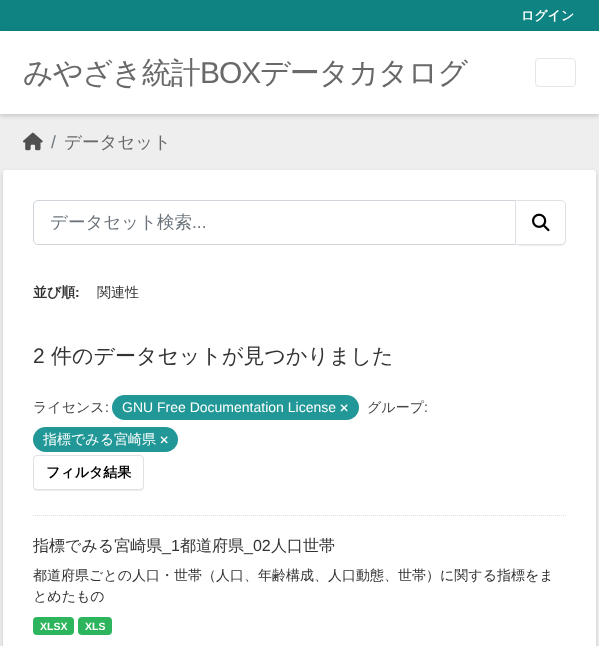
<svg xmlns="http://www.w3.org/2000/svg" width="599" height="646">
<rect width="100%" height="100%" fill="#0f8382"/>
<text x="521" y="20" style="font-family:WenQuanYi Zen Hei;font-size:13px;font-weight:bold;fill:#fff">ログイン</text>
<rect y="114" width="599" height="532" fill="#eee"/>
<rect y="33" width="599" height="83" fill="#00000029" filter="blur(2px)"/>
<rect y="31" width="599" height="83" fill="#fff"/>
<text x="23" y="83" style="font-family:WenQuanYi Zen Hei;font-size:30px;font-weight:500;letter-spacing:-1px;fill:#696969">みやざき統計</text>
<text x="200" y="83" style="font-family:Liberation Sans;font-size:30px;letter-spacing:-1px;fill:#696969">BOX</text>
<text x="260" y="83" style="font-family:WenQuanYi Zen Hei;font-size:30px;font-weight:500;letter-spacing:-1px;fill:#696969">データカタログ</text>
<rect x="535.5" y="58.5" width="40" height="28" rx="3.5" fill="none" stroke="#e6e6e6"/>
<image x="23" y="132" width="20" height="19" href="media/1.png"/>
<text x="51" y="148" style="font-family:Liberation Sans;font-size:17.5px;fill:#6c757d">/</text>
<text x="64" y="148" style="font-family:WenQuanYi Zen Hei;font-size:17.5px;font-weight:500;fill:#696969">データセット</text>
<rect x="3" y="172" width="593" height="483" rx="3" fill="#00000029" filter="blur(2px)"/>
<rect x="3" y="170" width="593" height="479" rx="3" fill="#fff"/>
<path d="M33 515.5h533" fill="none" stroke="#ddd" stroke-dasharray="1 1"/>
<path d="M38 200.5h477.5v44h-477.5c-2.5 0-4.5-2-4.5-4.5v-35c0-2.5 2-4.5 4.5-4.5z" fill="none" stroke="#ced4da"/>
<text x="50" y="228" style="font-family:WenQuanYi Zen Hei;font-size:17.5px;font-weight:500;fill:#6c757d">データセット検索</text>
<text x="192" y="228" style="font-family:Liberation Sans;font-size:17.5px;fill:#6c757d">...</text>
<rect x="515" y="201" width="51" height="45" rx="5" fill="#00000012" filter="blur(0.5px)"/>
<path d="M515.5 200.5h45.5c2.5 0 4.5 2 4.5 4.5v35c0 2.5-2 4.5-4.5 4.5h-45.5z" fill="#fff" stroke="#dee2e6"/>
<image x="532" y="213" width="18" height="19" href="media/2.png"/>
<text x="33" y="297" style="font-family:WenQuanYi Zen Hei;font-size:14px;font-weight:bold;fill:#333">並び順</text>
<text x="75" y="297" style="font-family:Liberation Sans;font-size:14px;font-weight:bold;fill:#333">:</text>
<text x="97" y="297" style="font-family:WenQuanYi Zen Hei;font-size:14px;font-weight:500;fill:#333">関連性</text>
<text x="33" y="363" style="font-family:Liberation Sans;font-size:21px;fill:#333">2</text>
<text x="51" y="363" style="font-family:WenQuanYi Zen Hei;font-size:21px;font-weight:500;fill:#333">件のデータセットが見つかりました</text>
<text x="33" y="412" style="font-family:WenQuanYi Zen Hei;font-size:14px;font-weight:500;fill:#444">ライセンス</text>
<text x="105" y="412" style="font-family:Liberation Sans;font-size:14px;fill:#444">:</text>
<rect x="112" y="395" width="247" height="25" rx="12.5" fill="#219897"/>
<text x="122" y="412" style="font-family:Liberation Sans;font-size:14px;fill:#fff">GNU Free Documentation License</text>
<image x="340" y="404" width="8" height="8" href="media/3.png"/>
<text x="367" y="412" style="font-family:WenQuanYi Zen Hei;font-size:14px;font-weight:500;fill:#444">グループ</text>
<text x="424" y="412" style="font-family:Liberation Sans;font-size:14px;fill:#444">:</text>
<rect x="33" y="427" width="145" height="25" rx="12.5" fill="#219897"/>
<text x="43" y="444" style="font-family:WenQuanYi Zen Hei;font-size:14px;font-weight:500;fill:#fff">指標でみる宮崎県</text>
<image x="160" y="436" width="8" height="8" href="media/3.png"/>
<rect x="33" y="456" width="111" height="35" rx="4" fill="#00000012" filter="blur(0.5px)"/>
<rect x="33.5" y="455.5" width="110" height="34" rx="3.5" fill="#fff" stroke="#dee2e6"/>
<text x="46" y="477" style="font-family:WenQuanYi Zen Hei;font-size:14px;font-weight:bold;fill:#000">フィルタ結果</text>
<text x="33" y="551" style="font-family:WenQuanYi Zen Hei;font-size:16px;font-weight:500;fill:#333">指標でみる宮崎県</text>
<text x="162" y="551" style="font-family:Liberation Sans;font-size:16px;fill:#333">_1</text>
<text x="180" y="551" style="font-family:WenQuanYi Zen Hei;font-size:16px;font-weight:500;fill:#333">都道府県</text>
<text x="244" y="551" style="font-family:Liberation Sans;font-size:16px;fill:#333">_02</text>
<text x="271" y="551" style="font-family:WenQuanYi Zen Hei;font-size:16px;font-weight:500;fill:#333">人口世帯</text>
<text x="33" y="580" style="font-family:WenQuanYi Zen Hei;font-size:14px;font-weight:500;fill:#333">都道府県ごとの人口・世帯（人口、年齢構成、人口動態、世帯）に関する指標をま</text>
<text x="33" y="601" style="font-family:WenQuanYi Zen Hei;font-size:14px;font-weight:500;fill:#333">とめたもの</text>
<rect x="33" y="617" width="41" height="18" rx="4" fill="#2db55d"/>
<text x="40" y="630" style="font-family:Liberation Sans;font-size:10.5px;font-weight:bold;fill:#fff">XLSX</text>
<rect x="78" y="617" width="34" height="18" rx="4" fill="#2db55d"/>
<text x="85" y="630" style="font-family:Liberation Sans;font-size:10.5px;font-weight:bold;fill:#fff">XLS</text>
</svg>
